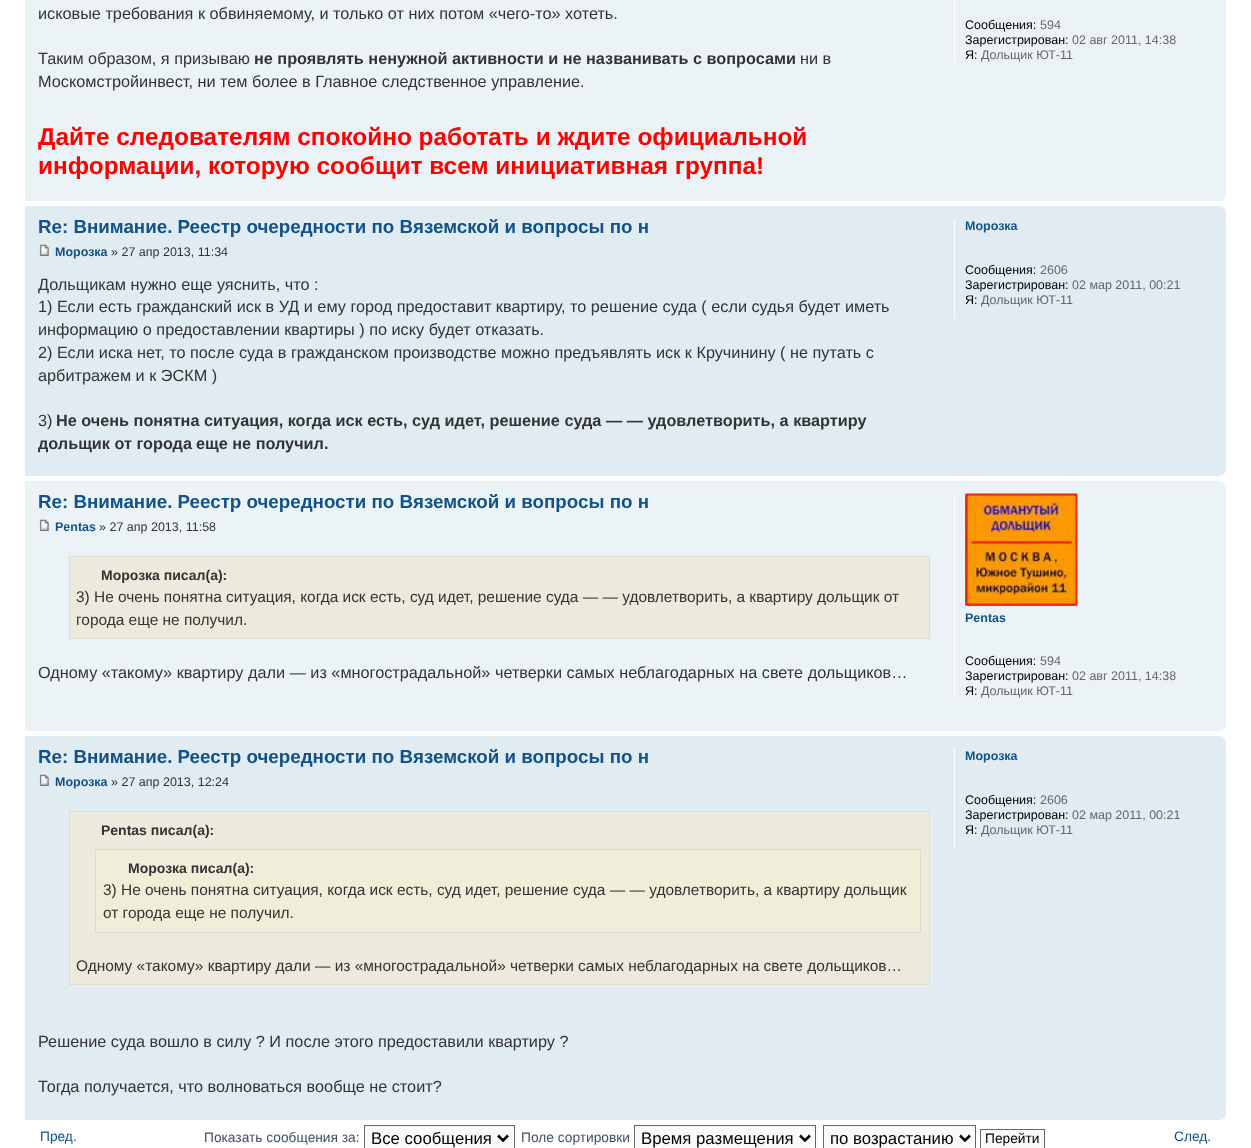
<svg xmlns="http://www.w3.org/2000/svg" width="1251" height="1148">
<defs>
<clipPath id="clip1"><rect x="38" width="893" height="181"/></clipPath>
<clipPath id="clip2"><rect x="38" y="274" width="893" height="182"/></clipPath>
</defs>
<rect width="100%" height="100%" fill="#fff"/>
<rect x="25" width="1201" height="201" fill="#ecf3f7"/>
<text x="38" y="19" style="font-family:Liberation Sans;font-size:16.25px;fill:#333">исковые требования к обвиняемому, и только от них потом «чего-то» хотеть.</text>
<text x="38" y="64" style="font-family:Liberation Sans;font-size:16.25px;fill:#333">Таким образом, я призываю</text>
<text x="254" y="64" style="font-family:Liberation Sans;font-size:16.25px;font-weight:bold;fill:#333">не проявлять ненужной активности и не названивать с вопросами</text>
<text x="800" y="64" style="font-family:Liberation Sans;font-size:16.25px;fill:#333">ни в</text>
<text x="38" y="87" style="font-family:Liberation Sans;font-size:16.25px;fill:#333">Москомстройинвест, ни тем более в Главное следственное управление.</text>
<g clip-path="url(#clip1)">
<text x="38" y="145" style="font-family:Liberation Sans;font-size:24.4px;font-weight:bold;fill:#f00">Дайте следователям спокойно работать и ждите официальной</text>
</g>
<text x="38" y="174" style="font-family:Liberation Sans;font-size:24.4px;font-weight:bold;fill:#f00">информации, которую сообщит всем инициативная группа!</text>
<rect x="954" width="1" height="63" fill="#fff"/>
<text x="965" y="29" style="font-family:Liberation Sans;font-size:12.5px;fill:#000">Сообщения:</text>
<text x="1040" y="29" style="font-family:Liberation Sans;font-size:12.5px;fill:#666">594</text>
<text x="965" y="44" style="font-family:Liberation Sans;font-size:12.5px;fill:#000">Зарегистрирован:</text>
<text x="1072" y="44" style="font-family:Liberation Sans;font-size:12.5px;fill:#666">02 авг 2011, 14:38</text>
<text x="965" y="59" style="font-family:Liberation Sans;font-size:12.5px;fill:#000">Я:</text>
<text x="981" y="59" style="font-family:Liberation Sans;font-size:12.5px;fill:#666">Дольщик ЮТ-11</text>
<image x="1221" y="195" width="5" height="6" href="media/1.png"/>
<rect x="25" y="206" width="1201" height="270" fill="#e1ebf2"/>
<image x="1220" y="206" width="6" height="6" href="media/2.png"/>
<text x="38" y="233" style="font-family:Liberation Sans;font-size:18.75px;font-weight:bold;fill:#105289">Re: Внимание. Реестр очередности по Вяземской и вопросы по н</text>
<image x="39" y="244" width="10" height="12" href="media/3.png"/>
<text x="55" y="256" style="font-family:Liberation Sans;font-size:12.5px;font-weight:bold;fill:#105289">Морозка</text>
<text x="111" y="256" style="font-family:Liberation Sans;font-size:12.5px;fill:#333">» 27 апр 2013, 11:34</text>
<g clip-path="url(#clip2)">
<text x="38" y="290" style="font-family:Liberation Sans;font-size:16.25px;fill:#333">Дольщикам нужно еще уяснить, что :</text>
</g>
<text x="38" y="312" style="font-family:Liberation Sans;font-size:16.25px;fill:#333">1) Если есть гражданский иск в УД и ему город предоставит квартиру, то решение суда ( если судья будет иметь</text>
<text x="38" y="335" style="font-family:Liberation Sans;font-size:16.25px;fill:#333">информацию о предоставлении квартиры ) по иску будет отказать.</text>
<text x="38" y="358" style="font-family:Liberation Sans;font-size:16.25px;fill:#333">2) Если иска нет, то после суда в гражданском производстве можно предъявлять иск к Кручинину ( не путать с</text>
<text x="38" y="381" style="font-family:Liberation Sans;font-size:16.25px;fill:#333">арбитражем и к ЭСКМ )</text>
<text x="38" y="426" style="font-family:Liberation Sans;font-size:16.25px;fill:#333">3)</text>
<text x="56" y="426" style="font-family:Liberation Sans;font-size:16.25px;font-weight:bold;fill:#333">Не очень понятна ситуация, когда иск есть, суд идет, решение суда — — удовлетворить, а квартиру</text>
<g clip-path="url(#clip2)">
<text x="38" y="449" style="font-family:Liberation Sans;font-size:16.25px;font-weight:bold;fill:#333">дольщик от города</text>
</g>
<text x="196" y="449" style="font-family:Liberation Sans;font-size:16.25px;font-weight:bold;fill:#333">еще не получил.</text>
<rect x="954" y="219" width="1" height="100" fill="#fff"/>
<text x="965" y="230" style="font-family:Liberation Sans;font-size:12.5px;font-weight:bold;fill:#105289">Морозка</text>
<text x="965" y="274" style="font-family:Liberation Sans;font-size:12.5px;fill:#000">Сообщения:</text>
<text x="1040" y="274" style="font-family:Liberation Sans;font-size:12.5px;fill:#666">2606</text>
<text x="965" y="289" style="font-family:Liberation Sans;font-size:12.5px;fill:#000">Зарегистрирован:</text>
<text x="1072" y="289" style="font-family:Liberation Sans;font-size:12.5px;fill:#666">02 мар 2011, 00:21</text>
<text x="965" y="304" style="font-family:Liberation Sans;font-size:12.5px;fill:#000">Я:</text>
<text x="981" y="304" style="font-family:Liberation Sans;font-size:12.5px;fill:#666">Дольщик ЮТ-11</text>
<image x="1220" y="470" width="6" height="6" href="media/4.png"/>
<rect x="25" y="481" width="1201" height="250" fill="#ecf3f7"/>
<image x="1220" y="481" width="6" height="6" href="media/5.png"/>
<text x="38" y="508" style="font-family:Liberation Sans;font-size:18.75px;font-weight:bold;fill:#105289">Re: Внимание. Реестр очередности по Вяземской и вопросы по н</text>
<image x="39" y="519" width="10" height="12" href="media/6.png"/>
<text x="55" y="531" style="font-family:Liberation Sans;font-size:12.5px;font-weight:bold;fill:#105289">Pentas</text>
<text x="99" y="531" style="font-family:Liberation Sans;font-size:12.5px;fill:#333">» 27 апр 2013, 11:58</text>
<rect x="69.5" y="556.5" width="860" height="82" fill="#ebeadd" stroke="#dbdbce"/>
<text x="101" y="580" style="font-family:Liberation Sans;font-size:14px;font-weight:bold;fill:#333">Морозка писал(а):</text>
<text x="76" y="602" style="font-family:Liberation Sans;font-size:15.45px;fill:#333">3) Не очень понятна ситуация, когда иск есть, суд идет, решение суда — — удовлетворить, а квартиру дольщик от</text>
<text x="76" y="625" style="font-family:Liberation Sans;font-size:15.45px;fill:#333">города еще не получил.</text>
<text x="38" y="678" style="font-family:Liberation Sans;font-size:16.25px;fill:#333">Одному «такому» квартиру дали — из «многострадальной» четверки самых неблагодарных на свете дольщиков…</text>
<rect x="954" y="494" width="1" height="205" fill="#fff"/>
<image x="965" y="493" width="113" height="113" href="media/7.png"/>
<text x="965" y="622" style="font-family:Liberation Sans;font-size:12.5px;font-weight:bold;fill:#105289">Pentas</text>
<text x="965" y="665" style="font-family:Liberation Sans;font-size:12.5px;fill:#000">Сообщения:</text>
<text x="1040" y="665" style="font-family:Liberation Sans;font-size:12.5px;fill:#666">594</text>
<text x="965" y="680" style="font-family:Liberation Sans;font-size:12.5px;fill:#000">Зарегистрирован:</text>
<text x="1072" y="680" style="font-family:Liberation Sans;font-size:12.5px;fill:#666">02 авг 2011, 14:38</text>
<text x="965" y="695" style="font-family:Liberation Sans;font-size:12.5px;fill:#000">Я:</text>
<text x="981" y="695" style="font-family:Liberation Sans;font-size:12.5px;fill:#666">Дольщик ЮТ-11</text>
<image x="1221" y="725" width="5" height="6" href="media/1.png"/>
<rect x="25" y="736" width="1201" height="384" fill="#e1ebf2"/>
<image x="1220" y="736" width="6" height="6" href="media/2.png"/>
<text x="38" y="763" style="font-family:Liberation Sans;font-size:18.75px;font-weight:bold;fill:#105289">Re: Внимание. Реестр очередности по Вяземской и вопросы по н</text>
<image x="39" y="774" width="10" height="12" href="media/3.png"/>
<text x="55" y="786" style="font-family:Liberation Sans;font-size:12.5px;font-weight:bold;fill:#105289">Морозка</text>
<text x="111" y="786" style="font-family:Liberation Sans;font-size:12.5px;fill:#333">» 27 апр 2013, 12:24</text>
<rect x="69.5" y="811.5" width="860" height="173" fill="#ebeadd" stroke="#dbdbce"/>
<text x="101" y="835" style="font-family:Liberation Sans;font-size:14px;font-weight:bold;fill:#333">Pentas писал(а):</text>
<rect x="95.5" y="849.5" width="825" height="83" fill="#efeed9" stroke="#dbdbce"/>
<text x="128" y="873" style="font-family:Liberation Sans;font-size:14px;font-weight:bold;fill:#333">Морозка писал(а):</text>
<text x="103" y="895" style="font-family:Liberation Sans;font-size:15.45px;fill:#333">3) Не очень понятна ситуация, когда иск есть, суд идет, решение суда — — удовлетворить, а квартиру дольщик</text>
<text x="103" y="918" style="font-family:Liberation Sans;font-size:15.45px;fill:#333">от города еще не получил.</text>
<text x="76" y="971" style="font-family:Liberation Sans;font-size:15.45px;fill:#333">Одному «такому» квартиру дали — из «многострадальной» четверки самых неблагодарных на свете дольщиков…</text>
<text x="38" y="1047" style="font-family:Liberation Sans;font-size:16.25px;fill:#333">Решение суда вошло в силу ? И после этого предоставили квартиру ?</text>
<text x="38" y="1092" style="font-family:Liberation Sans;font-size:16.25px;fill:#333">Тогда получается, что волноваться вообще не стоит?</text>
<rect x="954" y="749" width="1" height="100" fill="#fff"/>
<text x="965" y="760" style="font-family:Liberation Sans;font-size:12.5px;font-weight:bold;fill:#105289">Морозка</text>
<text x="965" y="804" style="font-family:Liberation Sans;font-size:12.5px;fill:#000">Сообщения:</text>
<text x="1040" y="804" style="font-family:Liberation Sans;font-size:12.5px;fill:#666">2606</text>
<text x="965" y="819" style="font-family:Liberation Sans;font-size:12.5px;fill:#000">Зарегистрирован:</text>
<text x="1072" y="819" style="font-family:Liberation Sans;font-size:12.5px;fill:#666">02 мар 2011, 00:21</text>
<text x="965" y="834" style="font-family:Liberation Sans;font-size:12.5px;fill:#000">Я:</text>
<text x="981" y="834" style="font-family:Liberation Sans;font-size:12.5px;fill:#666">Дольщик ЮТ-11</text>
<image x="1220" y="1114" width="6" height="6" href="media/8.png"/>
<text x="40" y="1141" style="font-family:Liberation Sans;font-size:13.75px;fill:#105289">Пред.</text>
<text x="204" y="1142" style="font-family:Liberation Sans;font-size:13.75px;fill:#425067">Показать сообщения за:</text>
<rect x="364.5" y="1125.5" width="150" height="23" fill="#fafafa" stroke="#666"/>
<path d="M498 1135.5l5 5l5-5" fill="none" stroke="#000" stroke-width="2.5"/>
<text x="371" y="1144" style="font-family:Liberation Sans;font-size:16.75px;fill:#000">Все сообщения</text>
<text x="521" y="1142" style="font-family:Liberation Sans;font-size:13.75px;fill:#425067">Поле сортировки</text>
<rect x="634.5" y="1125.5" width="181" height="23" fill="#fafafa" stroke="#666"/>
<path d="M800 1135.5l5 5l5-5" fill="none" stroke="#000" stroke-width="2.5"/>
<text x="641" y="1144" style="font-family:Liberation Sans;font-size:16.75px;fill:#000">Время размещения</text>
<rect x="823.5" y="1125.5" width="152" height="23" fill="#fafafa" stroke="#666"/>
<path d="M960 1135.5l5 5l5-5" fill="none" stroke="#000" stroke-width="2.5"/>
<text x="830" y="1144" style="font-family:Liberation Sans;font-size:16.75px;fill:#000">по возрастанию</text>
<rect x="980.5" y="1129.5" width="64" height="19" fill="#fafafa" stroke="#666"/>
<text x="985" y="1143" style="font-family:Liberation Sans;font-size:13.75px;fill:#000">Перейти</text>
<text x="1174" y="1141" style="font-family:Liberation Sans;font-size:13.75px;fill:#105289">След.</text>
</svg>
